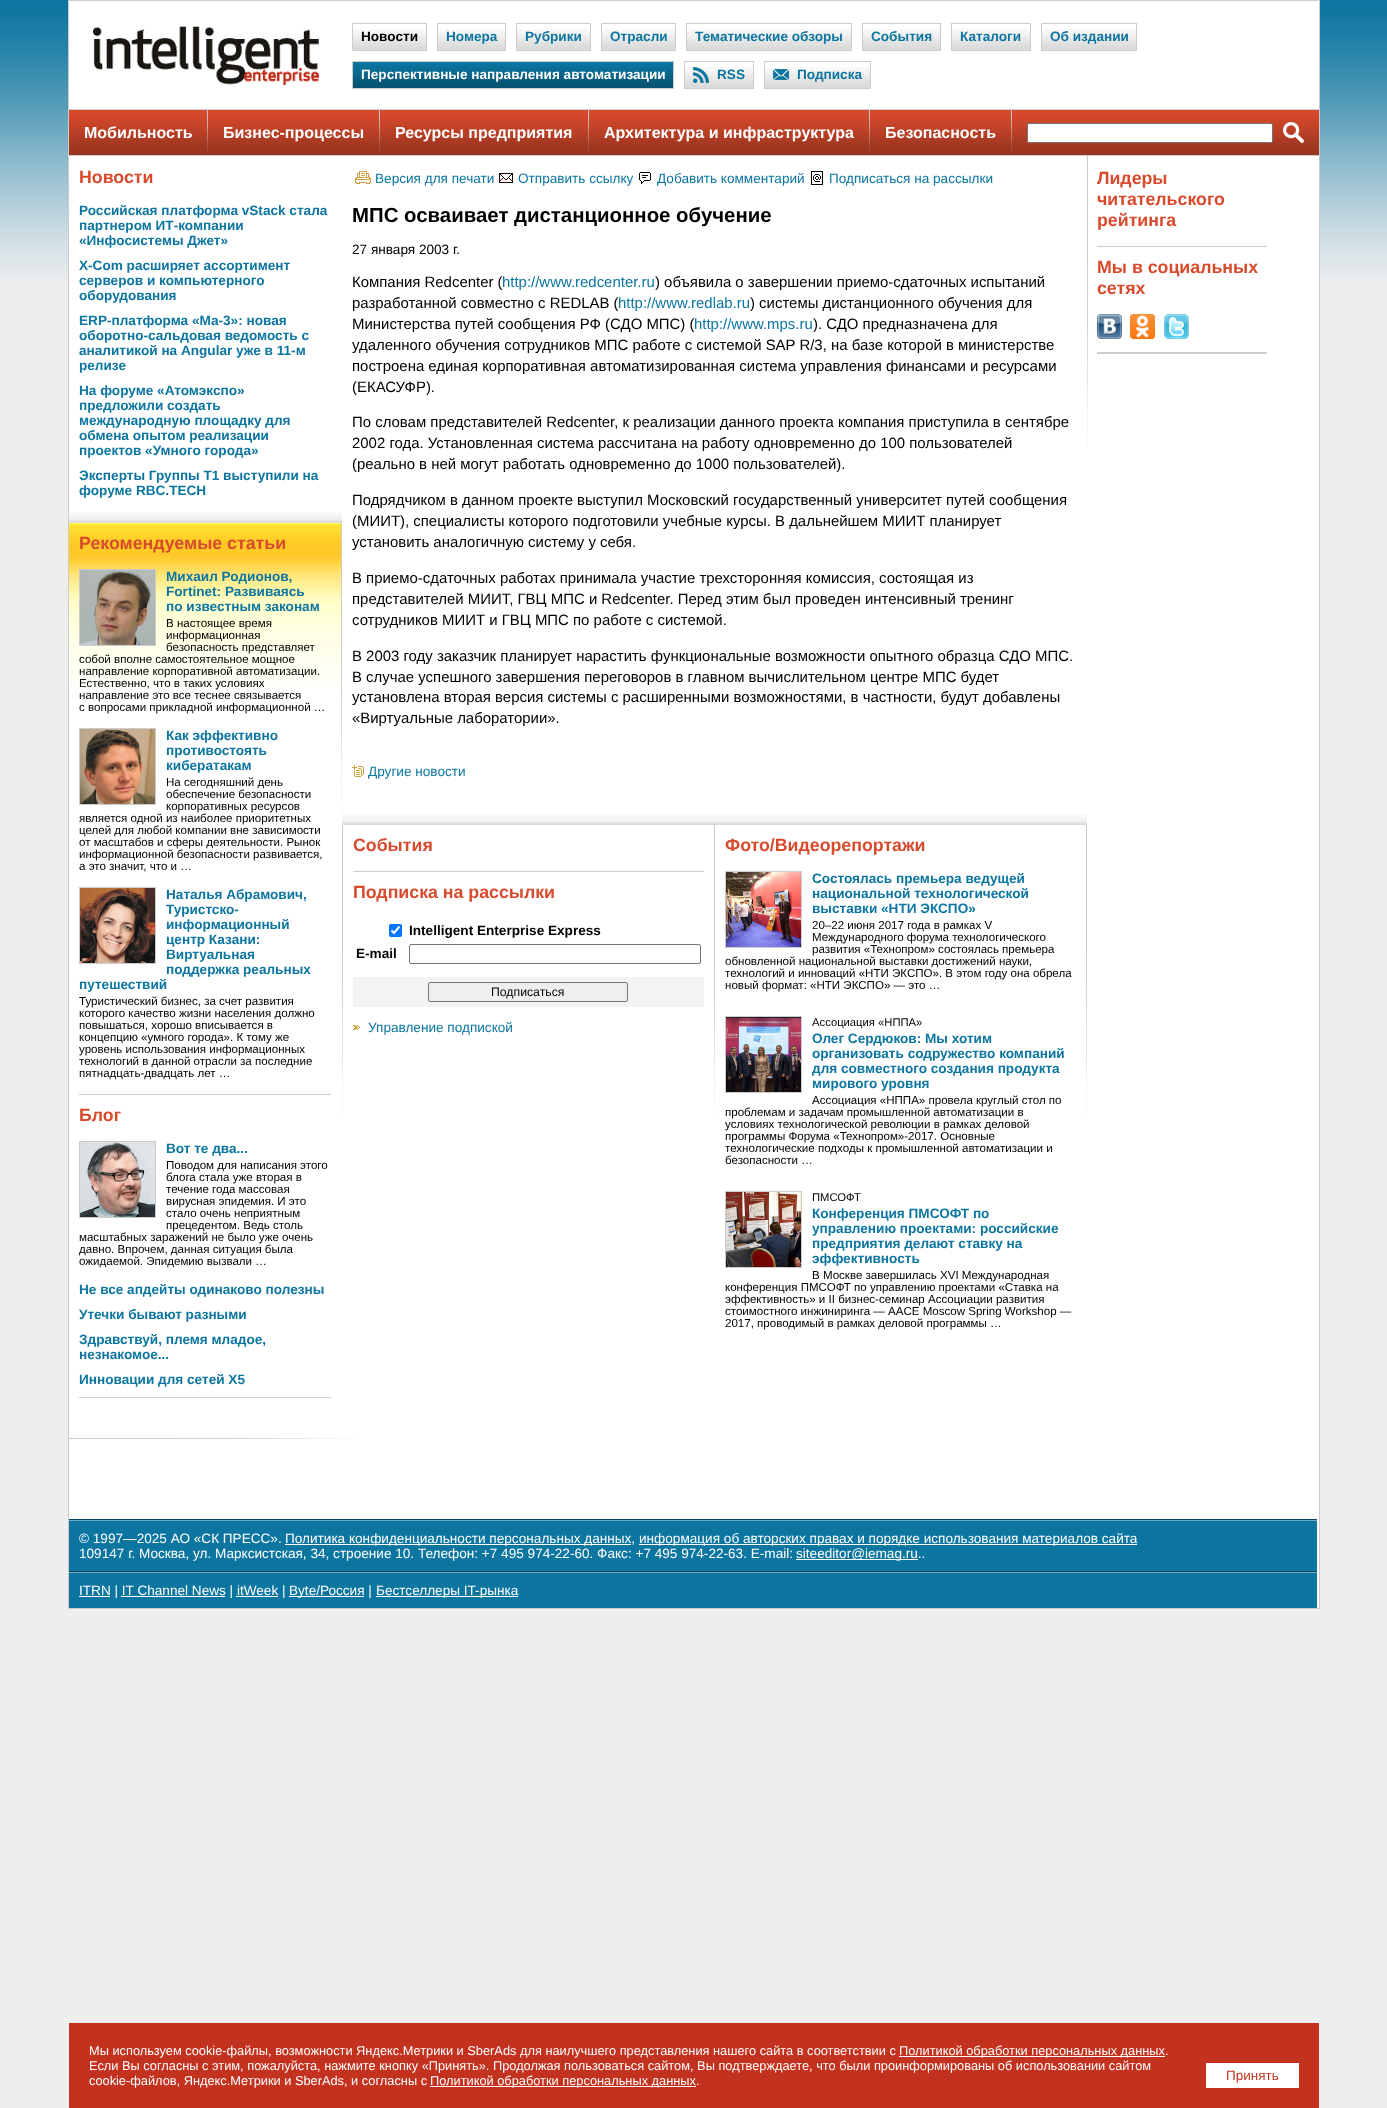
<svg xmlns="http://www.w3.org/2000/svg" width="1387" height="2108">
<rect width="100%" height="100%" fill="#eee"/>
<image x="0" y="0" width="1387" height="280" href="media/1.png"/>
<rect x="68.5" y="0.5" width="1251" height="1608" fill="#fff" stroke="#ccc"/>
<image x="93" y="26" width="226" height="59" href="media/2.png"/>
<image x="353" y="29" width="73" height="21" href="media/3.png"/>
<rect x="352.5" y="23.5" width="74" height="27" fill="none" stroke="#ccc"/>
<text x="361" y="41" style="font-family:Liberation Sans;font-size:13.6px;font-weight:bold;fill:#000">Новости</text>
<image x="438" y="29" width="67" height="21" href="media/4.png"/>
<rect x="437.5" y="23.5" width="68" height="27" fill="none" stroke="#ccc"/>
<text x="446" y="41" style="font-family:Liberation Sans;font-size:13.6px;font-weight:bold;fill:#0c75a0">Номера</text>
<image x="517" y="29" width="73" height="21" href="media/3.png"/>
<rect x="516.5" y="23.5" width="74" height="27" fill="none" stroke="#ccc"/>
<text x="525" y="41" style="font-family:Liberation Sans;font-size:13.6px;font-weight:bold;fill:#0c75a0">Рубрики</text>
<image x="602" y="29" width="73" height="21" href="media/3.png"/>
<rect x="601.5" y="23.5" width="74" height="27" fill="none" stroke="#ccc"/>
<text x="610" y="41" style="font-family:Liberation Sans;font-size:13.6px;font-weight:bold;fill:#0c75a0">Отрасли</text>
<image x="687" y="29" width="164" height="21" href="media/5.png"/>
<rect x="686.5" y="23.5" width="165" height="27" fill="none" stroke="#ccc"/>
<text x="695" y="41" style="font-family:Liberation Sans;font-size:13.6px;font-weight:bold;fill:#0c75a0">Тематические обзоры</text>
<image x="863" y="29" width="77" height="21" href="media/6.png"/>
<rect x="862.5" y="23.5" width="78" height="27" fill="none" stroke="#ccc"/>
<text x="871" y="41" style="font-family:Liberation Sans;font-size:13.6px;font-weight:bold;fill:#0c75a0">События</text>
<image x="952" y="29" width="78" height="21" href="media/7.png"/>
<rect x="951.5" y="23.5" width="79" height="27" fill="none" stroke="#ccc"/>
<text x="960" y="41" style="font-family:Liberation Sans;font-size:13.6px;font-weight:bold;fill:#0c75a0">Каталоги</text>
<image x="1042" y="29" width="94" height="21" href="media/8.png"/>
<rect x="1041.5" y="23.5" width="95" height="27" fill="none" stroke="#ccc"/>
<text x="1050" y="41" style="font-family:Liberation Sans;font-size:13.6px;font-weight:bold;fill:#0c75a0">Об издании</text>
<image x="353" y="62" width="320" height="26" href="media/9.png"/>
<rect x="352.5" y="61.5" width="321" height="27" fill="none" stroke="#ccc"/>
<text x="361" y="79" style="font-family:Liberation Sans;font-size:13.6px;font-weight:bold;fill:#fff">Перспективные направления автоматизации</text>
<image x="685" y="67" width="68" height="21" href="media/10.png"/>
<rect x="684.5" y="61.5" width="69" height="27" fill="none" stroke="#ccc"/>
<image x="693" y="67" width="16" height="16" href="media/11.png"/>
<text x="717" y="79" style="font-family:Liberation Sans;font-size:13.6px;font-weight:bold;fill:#0c75a0">RSS</text>
<image x="765" y="67" width="105" height="21" href="media/12.png"/>
<rect x="764.5" y="61.5" width="106" height="27" fill="none" stroke="#ccc"/>
<image x="773" y="69" width="16" height="11" href="media/13.png"/>
<text x="797" y="79" style="font-family:Liberation Sans;font-size:13.6px;font-weight:bold;fill:#0c75a0">Подписка</text>
<image x="69" y="109" width="1250" height="47" href="media/14.png"/>
<text x="84" y="138" style="font-family:Liberation Sans;font-size:16px;font-weight:bold;fill:#fff">Мобильность</text>
<image x="207" y="110" width="1" height="43" href="media/15.png"/>
<text x="223" y="138" style="font-family:Liberation Sans;font-size:16px;font-weight:bold;fill:#fff">Бизнес-процессы</text>
<image x="379" y="110" width="1" height="43" href="media/15.png"/>
<text x="395" y="138" style="font-family:Liberation Sans;font-size:16px;font-weight:bold;fill:#fff">Ресурсы предприятия</text>
<image x="588" y="110" width="1" height="43" href="media/15.png"/>
<text x="604" y="138" style="font-family:Liberation Sans;font-size:16px;font-weight:bold;fill:#fff">Архитектура и инфраструктура</text>
<image x="869" y="110" width="1" height="43" href="media/15.png"/>
<text x="885" y="138" style="font-family:Liberation Sans;font-size:16px;font-weight:bold;fill:#fff">Безопасность</text>
<image x="1011" y="110" width="1" height="43" href="media/15.png"/>
<rect x="1027.5" y="123.5" width="245" height="19" rx="1.5" fill="#fff" stroke="#767676"/>
<image x="1283" y="122" width="21" height="21" href="media/16.png"/>
<text x="79" y="183" style="font-family:Liberation Sans;font-size:17.75px;font-weight:bold;fill:#d84a2c">Новости</text>
<text x="79" y="215" style="font-family:Liberation Sans;font-size:13.6px;font-weight:bold;fill:#0c75a0">Российская платформа vStack стала</text>
<text x="79" y="230" style="font-family:Liberation Sans;font-size:13.6px;font-weight:bold;fill:#0c75a0">партнером ИТ-компании</text>
<text x="79" y="245" style="font-family:Liberation Sans;font-size:13.6px;font-weight:bold;fill:#0c75a0">«Инфосистемы Джет»</text>
<text x="79" y="270" style="font-family:Liberation Sans;font-size:13.6px;font-weight:bold;fill:#0c75a0">X-Com расширяет ассортимент</text>
<text x="79" y="285" style="font-family:Liberation Sans;font-size:13.6px;font-weight:bold;fill:#0c75a0">серверов и компьютерного</text>
<text x="79" y="300" style="font-family:Liberation Sans;font-size:13.6px;font-weight:bold;fill:#0c75a0">оборудования</text>
<text x="79" y="325" style="font-family:Liberation Sans;font-size:13.6px;font-weight:bold;fill:#0c75a0">ERP-платформа «Ма-3»: новая</text>
<text x="79" y="340" style="font-family:Liberation Sans;font-size:13.6px;font-weight:bold;fill:#0c75a0">оборотно-сальдовая ведомость с</text>
<text x="79" y="355" style="font-family:Liberation Sans;font-size:13.6px;font-weight:bold;fill:#0c75a0">аналитикой на Angular уже в 11-м</text>
<text x="79" y="370" style="font-family:Liberation Sans;font-size:13.6px;font-weight:bold;fill:#0c75a0">релизе</text>
<text x="79" y="395" style="font-family:Liberation Sans;font-size:13.6px;font-weight:bold;fill:#0c75a0">На форуме «Атомэкспо»</text>
<text x="79" y="410" style="font-family:Liberation Sans;font-size:13.6px;font-weight:bold;fill:#0c75a0">предложили создать</text>
<text x="79" y="425" style="font-family:Liberation Sans;font-size:13.6px;font-weight:bold;fill:#0c75a0">международную площадку для</text>
<text x="79" y="440" style="font-family:Liberation Sans;font-size:13.6px;font-weight:bold;fill:#0c75a0">обмена опытом реализации</text>
<text x="79" y="455" style="font-family:Liberation Sans;font-size:13.6px;font-weight:bold;fill:#0c75a0">проектов «Умного города»</text>
<text x="79" y="480" style="font-family:Liberation Sans;font-size:13.6px;font-weight:bold;fill:#0c75a0">Эксперты Группы Т1 выступили на</text>
<text x="79" y="495" style="font-family:Liberation Sans;font-size:13.6px;font-weight:bold;fill:#0c75a0">форуме RBC.TECH</text>
<image x="69" y="512" width="273" height="11" href="media/17.png"/>
<image x="69" y="523" width="272" height="166" href="media/18.png"/>
<text x="79" y="549" style="font-family:Liberation Sans;font-size:17.75px;font-weight:bold;fill:#d84a2c">Рекомендуемые статьи</text>
<rect x="79.5" y="569.5" width="76" height="76" fill="none" stroke="#ccc"/>
<image x="80" y="570" width="75" height="75" href="media/19.png"/>
<text x="166" y="581" style="font-family:Liberation Sans;font-size:13.6px;font-weight:bold;fill:#0c75a0">Михаил Родионов,</text>
<text x="166" y="596" style="font-family:Liberation Sans;font-size:13.6px;font-weight:bold;fill:#0c75a0">Fortinet: Развиваясь</text>
<text x="166" y="611" style="font-family:Liberation Sans;font-size:13.6px;font-weight:bold;fill:#0c75a0">по известным законам</text>
<text x="166" y="627" style="font-family:Liberation Sans;font-size:11.55px;fill:#000">В настоящее время</text>
<text x="166" y="639" style="font-family:Liberation Sans;font-size:11.55px;fill:#000">информационная</text>
<text x="166" y="651" style="font-family:Liberation Sans;font-size:11.55px;fill:#000">безопасность представляет</text>
<text x="79" y="663" style="font-family:Liberation Sans;font-size:11.55px;fill:#000">собой вполне самостоятельное мощное</text>
<text x="79" y="675" style="font-family:Liberation Sans;font-size:11.55px;fill:#000">направление корпоративной автоматизации.</text>
<text x="79" y="687" style="font-family:Liberation Sans;font-size:11.55px;fill:#000">Естественно, что в таких условиях</text>
<text x="79" y="699" style="font-family:Liberation Sans;font-size:11.55px;fill:#000">направление это все теснее связывается</text>
<text x="79" y="711" style="font-family:Liberation Sans;font-size:11.55px;fill:#000">с вопросами прикладной информационной …</text>
<rect x="79.5" y="728.5" width="76" height="76" fill="none" stroke="#ccc"/>
<image x="80" y="729" width="75" height="75" href="media/20.png"/>
<text x="166" y="740" style="font-family:Liberation Sans;font-size:13.6px;font-weight:bold;fill:#0c75a0">Как эффективно</text>
<text x="166" y="755" style="font-family:Liberation Sans;font-size:13.6px;font-weight:bold;fill:#0c75a0">противостоять</text>
<text x="166" y="770" style="font-family:Liberation Sans;font-size:13.6px;font-weight:bold;fill:#0c75a0">кибератакам</text>
<text x="166" y="786" style="font-family:Liberation Sans;font-size:11.55px;fill:#000">На сегодняшний день</text>
<text x="166" y="798" style="font-family:Liberation Sans;font-size:11.55px;fill:#000">обеспечение безопасности</text>
<text x="166" y="810" style="font-family:Liberation Sans;font-size:11.55px;fill:#000">корпоративных ресурсов</text>
<text x="79" y="822" style="font-family:Liberation Sans;font-size:11.55px;fill:#000">является одной из наиболее приоритетных</text>
<text x="79" y="834" style="font-family:Liberation Sans;font-size:11.55px;fill:#000">целей для любой компании вне зависимости</text>
<text x="79" y="846" style="font-family:Liberation Sans;font-size:11.55px;fill:#000">от масштабов и сферы деятельности. Рынок</text>
<text x="79" y="858" style="font-family:Liberation Sans;font-size:11.55px;fill:#000">информационной безопасности развивается,</text>
<text x="79" y="870" style="font-family:Liberation Sans;font-size:11.55px;fill:#000">а это значит, что и …</text>
<rect x="79.5" y="887.5" width="76" height="76" fill="none" stroke="#ccc"/>
<image x="80" y="888" width="75" height="75" href="media/21.png"/>
<text x="166" y="899" style="font-family:Liberation Sans;font-size:13.6px;font-weight:bold;fill:#0c75a0">Наталья Абрамович,</text>
<text x="166" y="914" style="font-family:Liberation Sans;font-size:13.6px;font-weight:bold;fill:#0c75a0">Туристско-</text>
<text x="166" y="929" style="font-family:Liberation Sans;font-size:13.6px;font-weight:bold;fill:#0c75a0">информационный</text>
<text x="166" y="944" style="font-family:Liberation Sans;font-size:13.6px;font-weight:bold;fill:#0c75a0">центр Казани:</text>
<text x="166" y="959" style="font-family:Liberation Sans;font-size:13.6px;font-weight:bold;fill:#0c75a0">Виртуальная</text>
<text x="166" y="974" style="font-family:Liberation Sans;font-size:13.6px;font-weight:bold;fill:#0c75a0">поддержка реальных</text>
<text x="79" y="989" style="font-family:Liberation Sans;font-size:13.6px;font-weight:bold;fill:#0c75a0">путешествий</text>
<text x="79" y="1005" style="font-family:Liberation Sans;font-size:11.55px;fill:#000">Туристический бизнес, за счет развития</text>
<text x="79" y="1017" style="font-family:Liberation Sans;font-size:11.55px;fill:#000">которого качество жизни населения должно</text>
<text x="79" y="1029" style="font-family:Liberation Sans;font-size:11.55px;fill:#000">повышаться, хорошо вписывается в</text>
<text x="79" y="1041" style="font-family:Liberation Sans;font-size:11.55px;fill:#000">концепцию «умного города». К тому же</text>
<text x="79" y="1053" style="font-family:Liberation Sans;font-size:11.55px;fill:#000">уровень использования информационных</text>
<text x="79" y="1065" style="font-family:Liberation Sans;font-size:11.55px;fill:#000">технологий в данной отрасли за последние</text>
<text x="79" y="1077" style="font-family:Liberation Sans;font-size:11.55px;fill:#000">пятнадцать-двадцать лет …</text>
<rect x="79" y="1094" width="252" height="1" fill="#ccc"/>
<text x="79" y="1121" style="font-family:Liberation Sans;font-size:17.75px;font-weight:bold;fill:#d84a2c">Блог</text>
<rect x="79.5" y="1141.5" width="76" height="76" fill="none" stroke="#ccc"/>
<image x="80" y="1142" width="75" height="75" href="media/22.png"/>
<text x="166" y="1153" style="font-family:Liberation Sans;font-size:13.6px;font-weight:bold;fill:#0c75a0">Вот те два...</text>
<text x="166" y="1169" style="font-family:Liberation Sans;font-size:11.55px;fill:#000">Поводом для написания этого</text>
<text x="166" y="1181" style="font-family:Liberation Sans;font-size:11.55px;fill:#000">блога стала уже вторая в</text>
<text x="166" y="1193" style="font-family:Liberation Sans;font-size:11.55px;fill:#000">течение года массовая</text>
<text x="166" y="1205" style="font-family:Liberation Sans;font-size:11.55px;fill:#000">вирусная эпидемия. И это</text>
<text x="166" y="1217" style="font-family:Liberation Sans;font-size:11.55px;fill:#000">стало очень неприятным</text>
<text x="166" y="1229" style="font-family:Liberation Sans;font-size:11.55px;fill:#000">прецедентом. Ведь столь</text>
<text x="79" y="1241" style="font-family:Liberation Sans;font-size:11.55px;fill:#000">масштабных заражений не было уже очень</text>
<text x="79" y="1253" style="font-family:Liberation Sans;font-size:11.55px;fill:#000">давно. Впрочем, данная ситуация была</text>
<text x="79" y="1265" style="font-family:Liberation Sans;font-size:11.55px;fill:#000">ожидаемой. Эпидемию вызвали …</text>
<text x="79" y="1294" style="font-family:Liberation Sans;font-size:13.6px;font-weight:bold;fill:#0c75a0">Не все апдейты одинаково полезны</text>
<text x="79" y="1319" style="font-family:Liberation Sans;font-size:13.6px;font-weight:bold;fill:#0c75a0">Утечки бывают разными</text>
<text x="79" y="1344" style="font-family:Liberation Sans;font-size:13.6px;font-weight:bold;fill:#0c75a0">Здравствуй, племя младое,</text>
<text x="79" y="1359" style="font-family:Liberation Sans;font-size:13.6px;font-weight:bold;fill:#0c75a0">незнакомое...</text>
<text x="79" y="1384" style="font-family:Liberation Sans;font-size:13.6px;font-weight:bold;fill:#0c75a0">Инновации для сетей X5</text>
<rect x="79" y="1397" width="252" height="1" fill="#ccc"/>
<image x="341" y="523" width="1" height="292" href="media/23.png"/>
<image x="355" y="171" width="16" height="13" href="media/24.png"/>
<text x="375" y="183" style="font-family:Liberation Sans;font-size:13.6px;fill:#0c75a0">Версия для печати</text>
<image x="499" y="173" width="14" height="10" href="media/25.png"/>
<text x="518" y="183" style="font-family:Liberation Sans;font-size:13.6px;fill:#0c75a0">Отправить ссылку</text>
<image x="639" y="172" width="12" height="12" href="media/26.png"/>
<text x="657" y="183" style="font-family:Liberation Sans;font-size:13.6px;fill:#0c75a0">Добавить комментарий</text>
<image x="811" y="171" width="12" height="14" href="media/27.png"/>
<text x="829" y="183" style="font-family:Liberation Sans;font-size:13.6px;fill:#0c75a0">Подписаться на рассылки</text>
<text x="352" y="222" style="font-family:Liberation Sans;font-size:20.4px;font-weight:bold;fill:#000">МПС осваивает дистанционное обучение</text>
<text x="352" y="254" style="font-family:Liberation Sans;font-size:13.6px;fill:#000">27 января 2003 г.</text>
<text x="352" y="287" style="font-family:Liberation Sans;font-size:14.95px;fill:#000">Компания Redcenter (</text>
<text x="502" y="287" style="font-family:Liberation Sans;font-size:14.95px;fill:#0c75a0">http://www.redcenter.ru</text>
<text x="655" y="287" style="font-family:Liberation Sans;font-size:14.95px;fill:#000">) объявила о завершении приемо-сдаточных испытаний</text>
<text x="352" y="308" style="font-family:Liberation Sans;font-size:14.95px;fill:#000">разработанной совместно с REDLAB (</text>
<text x="618" y="308" style="font-family:Liberation Sans;font-size:14.95px;fill:#0c75a0">http://www.redlab.ru</text>
<text x="750" y="308" style="font-family:Liberation Sans;font-size:14.95px;fill:#000">) системы дистанционного обучения для</text>
<text x="352" y="329" style="font-family:Liberation Sans;font-size:14.95px;fill:#000">Министерства путей сообщения РФ (СДО МПС) (</text>
<text x="694" y="329" style="font-family:Liberation Sans;font-size:14.95px;fill:#0c75a0">http://www.mps.ru</text>
<text x="813" y="329" style="font-family:Liberation Sans;font-size:14.95px;fill:#000">). СДО предназначена для</text>
<text x="352" y="350" style="font-family:Liberation Sans;font-size:14.95px;fill:#000">удаленного обучения сотрудников МПС работе с системой SAP R/3, на базе которой в министерстве</text>
<text x="352" y="371" style="font-family:Liberation Sans;font-size:14.95px;fill:#000">построена единая корпоративная автоматизированная система управления финансами и ресурсами</text>
<text x="352" y="392" style="font-family:Liberation Sans;font-size:14.95px;fill:#000">(ЕКАСУФР).</text>
<text x="352" y="427" style="font-family:Liberation Sans;font-size:14.95px;fill:#000">По словам представителей Redcenter, к реализации данного проекта компания приступила в сентябре</text>
<text x="352" y="448" style="font-family:Liberation Sans;font-size:14.95px;fill:#000">2002 года. Установленная система рассчитана на работу одновременно до 100 пользователей</text>
<text x="352" y="469" style="font-family:Liberation Sans;font-size:14.95px;fill:#000">(реально в ней могут работать одновременно до 1000 пользователей).</text>
<text x="352" y="505" style="font-family:Liberation Sans;font-size:14.95px;fill:#000">Подрядчиком в данном проекте выступил Московский государственный университет путей сообщения</text>
<text x="352" y="526" style="font-family:Liberation Sans;font-size:14.95px;fill:#000">(МИИТ), специалисты которого подготовили учебные курсы. В дальнейшем МИИТ планирует</text>
<text x="352" y="547" style="font-family:Liberation Sans;font-size:14.95px;fill:#000">установить аналогичную систему у себя.</text>
<text x="352" y="583" style="font-family:Liberation Sans;font-size:14.95px;fill:#000">В приемо-сдаточных работах принимала участие трехсторонняя комиссия, состоящая из</text>
<text x="352" y="604" style="font-family:Liberation Sans;font-size:14.95px;fill:#000">представителей МИИТ, ГВЦ МПС и Redcenter. Перед этим был проведен интенсивный тренинг</text>
<text x="352" y="625" style="font-family:Liberation Sans;font-size:14.95px;fill:#000">сотрудников МИИТ и ГВЦ МПС по работе с системой.</text>
<text x="352" y="661" style="font-family:Liberation Sans;font-size:14.95px;fill:#000">В 2003 году заказчик планирует нарастить функциональные возможности опытного образца СДО МПС.</text>
<text x="352" y="682" style="font-family:Liberation Sans;font-size:14.95px;fill:#000">В случае успешного завершения переговоров в главном вычислительном центре МПС будет</text>
<text x="352" y="702" style="font-family:Liberation Sans;font-size:14.95px;fill:#000">установлена вторая версия системы с расширенными возможностями, в частности, будут добавлены</text>
<text x="352" y="723" style="font-family:Liberation Sans;font-size:14.95px;fill:#000">«Виртуальные лаборатории».</text>
<image x="352" y="765" width="12" height="12" href="media/28.png"/>
<text x="368" y="776" style="font-family:Liberation Sans;font-size:13.6px;fill:#0c75a0">Другие новости</text>
<image x="342" y="814" width="745" height="11" href="media/29.png"/>
<image x="342" y="825" width="1" height="292" href="media/23.png"/>
<text x="353" y="851" style="font-family:Liberation Sans;font-size:17.75px;font-weight:bold;fill:#d84a2c">События</text>
<rect x="353" y="871" width="351" height="1" fill="#ccc"/>
<text x="353" y="898" style="font-family:Liberation Sans;font-size:17.75px;font-weight:bold;fill:#d84a2c">Подписка на рассылки</text>
<rect x="389" y="924" width="13" height="13" rx="2" fill="#0075ff"/>
<path d="M391.5 930.5l2.5 2.5l5.5-6.5" fill="none" stroke="#fff" stroke-width="2.1"/>
<text x="409" y="935" style="font-family:Liberation Sans;font-size:13.6px;font-weight:bold;fill:#000">Intelligent Enterprise Express</text>
<text x="356" y="958" style="font-family:Liberation Sans;font-size:13.6px;font-weight:bold;fill:#000">E-mail</text>
<rect x="409.5" y="944.5" width="291" height="19" rx="1.5" fill="none" stroke="#767676"/>
<rect x="353" y="977" width="351" height="30" fill="#f3f3f3"/>
<rect x="428.5" y="982.5" width="199" height="19" rx="1.5" fill="#efefef" stroke="#767676"/>
<text x="491" y="996" style="font-family:Liberation Sans;font-size:12.25px;fill:#000">Подписаться</text>
<image x="353" y="1025" width="7" height="5" href="media/30.png"/>
<text x="368" y="1032" style="font-family:Liberation Sans;font-size:13.6px;fill:#0c75a0">Управление подпиской</text>
<image x="714" y="825" width="1" height="292" href="media/23.png"/>
<text x="725" y="851" style="font-family:Liberation Sans;font-size:17.75px;font-weight:bold;fill:#d84a2c">Фото/Видеорепортажи</text>
<rect x="725.5" y="871.5" width="76" height="76" fill="none" stroke="#ccc"/>
<image x="726" y="872" width="75" height="75" href="media/31.png"/>
<text x="812" y="883" style="font-family:Liberation Sans;font-size:13.6px;font-weight:bold;fill:#0c75a0">Состоялась премьера ведущей</text>
<text x="812" y="898" style="font-family:Liberation Sans;font-size:13.6px;font-weight:bold;fill:#0c75a0">национальной технологической</text>
<text x="812" y="913" style="font-family:Liberation Sans;font-size:13.6px;font-weight:bold;fill:#0c75a0">выставки «НТИ ЭКСПО»</text>
<text x="812" y="929" style="font-family:Liberation Sans;font-size:11.55px;fill:#000">20–22 июня 2017 года в рамках V</text>
<text x="812" y="941" style="font-family:Liberation Sans;font-size:11.55px;fill:#000">Международного форума технологического</text>
<text x="812" y="953" style="font-family:Liberation Sans;font-size:11.55px;fill:#000">развития «Технопром» состоялась премьера</text>
<text x="725" y="965" style="font-family:Liberation Sans;font-size:11.55px;fill:#000">обновленной национальной выставки достижений науки,</text>
<text x="725" y="977" style="font-family:Liberation Sans;font-size:11.55px;fill:#000">технологий и инноваций «НТИ ЭКСПО». В этом году она обрела</text>
<text x="725" y="989" style="font-family:Liberation Sans;font-size:11.55px;fill:#000">новый формат: «НТИ ЭКСПО» — это …</text>
<rect x="725.5" y="1016.5" width="76" height="76" fill="none" stroke="#ccc"/>
<image x="726" y="1017" width="75" height="75" href="media/32.png"/>
<text x="812" y="1026" style="font-family:Liberation Sans;font-size:11.25px;fill:#000">Ассоциация «НППА»</text>
<text x="812" y="1043" style="font-family:Liberation Sans;font-size:13.6px;font-weight:bold;fill:#0c75a0">Олег Сердюков: Мы хотим</text>
<text x="812" y="1058" style="font-family:Liberation Sans;font-size:13.6px;font-weight:bold;fill:#0c75a0">организовать содружество компаний</text>
<text x="812" y="1073" style="font-family:Liberation Sans;font-size:13.6px;font-weight:bold;fill:#0c75a0">для совместного создания продукта</text>
<text x="812" y="1088" style="font-family:Liberation Sans;font-size:13.6px;font-weight:bold;fill:#0c75a0">мирового уровня</text>
<text x="812" y="1104" style="font-family:Liberation Sans;font-size:11.55px;fill:#000">Ассоциация «НППА» провела круглый стол по</text>
<text x="725" y="1116" style="font-family:Liberation Sans;font-size:11.55px;fill:#000">проблемам и задачам промышленной автоматизации в</text>
<text x="725" y="1128" style="font-family:Liberation Sans;font-size:11.55px;fill:#000">условиях технологической революции в рамках деловой</text>
<text x="725" y="1140" style="font-family:Liberation Sans;font-size:11.55px;fill:#000">программы Форума «Технопром»-2017. Основные</text>
<text x="725" y="1152" style="font-family:Liberation Sans;font-size:11.55px;fill:#000">технологические подходы к промышленной автоматизации и</text>
<text x="725" y="1164" style="font-family:Liberation Sans;font-size:11.55px;fill:#000">безопасности …</text>
<rect x="725.5" y="1191.5" width="76" height="76" fill="none" stroke="#ccc"/>
<image x="726" y="1192" width="75" height="75" href="media/33.png"/>
<text x="812" y="1201" style="font-family:Liberation Sans;font-size:11.25px;fill:#000">ПМСОФТ</text>
<text x="812" y="1218" style="font-family:Liberation Sans;font-size:13.6px;font-weight:bold;fill:#0c75a0">Конференция ПМСОФТ по</text>
<text x="812" y="1233" style="font-family:Liberation Sans;font-size:13.6px;font-weight:bold;fill:#0c75a0">управлению проектами: российские</text>
<text x="812" y="1248" style="font-family:Liberation Sans;font-size:13.6px;font-weight:bold;fill:#0c75a0">предприятия делают ставку на</text>
<text x="812" y="1263" style="font-family:Liberation Sans;font-size:13.6px;font-weight:bold;fill:#0c75a0">эффективность</text>
<text x="812" y="1279" style="font-family:Liberation Sans;font-size:11.55px;fill:#000">В Москве завершилась XVI Международная</text>
<text x="725" y="1291" style="font-family:Liberation Sans;font-size:11.55px;fill:#000">конференция ПМСОФТ по управлению проектами «Ставка на</text>
<text x="725" y="1303" style="font-family:Liberation Sans;font-size:11.55px;fill:#000">эффективность» и II бизнес-семинар Ассоциации развития</text>
<text x="725" y="1315" style="font-family:Liberation Sans;font-size:11.55px;fill:#000">стоимостного инжиниринга — AACE Moscow Spring Workshop —</text>
<text x="725" y="1327" style="font-family:Liberation Sans;font-size:11.55px;fill:#000">2017, проводимый в рамках деловой программы …</text>
<image x="1086" y="825" width="1" height="292" href="media/23.png"/>
<image x="1087" y="156" width="1" height="292" href="media/23.png"/>
<text x="1097" y="184" style="font-family:Liberation Sans;font-size:17.75px;font-weight:bold;fill:#d84a2c">Лидеры</text>
<text x="1097" y="205" style="font-family:Liberation Sans;font-size:17.75px;font-weight:bold;fill:#d84a2c">читательского</text>
<text x="1097" y="226" style="font-family:Liberation Sans;font-size:17.75px;font-weight:bold;fill:#d84a2c">рейтинга</text>
<rect x="1097" y="246" width="170" height="1" fill="#ccc"/>
<text x="1097" y="273" style="font-family:Liberation Sans;font-size:17.75px;font-weight:bold;fill:#d84a2c">Мы в социальных</text>
<text x="1097" y="294" style="font-family:Liberation Sans;font-size:17.75px;font-weight:bold;fill:#d84a2c">сетях</text>
<image x="1097" y="314" width="25" height="25" href="media/34.png"/>
<image x="1130" y="314" width="25" height="25" href="media/35.png"/>
<image x="1164" y="314" width="25" height="25" href="media/36.png"/>
<rect x="1097" y="352" width="170" height="2" fill="#cecece"/>
<image x="69" y="1438" width="292" height="1" href="media/37.png"/>
<rect x="69" y="1521" width="1248" height="87" fill="#0c75a0"/>
<rect x="69" y="1519" width="1248" height="1" fill="#074660"/>
<rect x="69" y="1520" width="1248" height="1" fill="#6dacc6"/>
<text x="79" y="1543" style="font-family:Liberation Sans;font-size:13.6px;fill:#fff">© 1997—2025 АО «СК ПРЕСС».</text>
<rect x="285" y="1544" width="346" height="1" fill="#fff"/>
<text x="285" y="1543" style="font-family:Liberation Sans;font-size:13.6px;fill:#fff">Политика конфиденциальности персональных данных,</text>
<rect x="639" y="1544" width="498" height="1" fill="#fff"/>
<text x="639" y="1543" style="font-family:Liberation Sans;font-size:13.6px;fill:#fff">информация об авторских правах и порядке использования материалов сайта</text>
<text x="79" y="1558" style="font-family:Liberation Sans;font-size:13.6px;fill:#fff">109147 г. Москва, ул. Марксистская, 34, строение 10. Телефон: +7 495 974-22-60. Факс: +7 495 974-22-63. E-mail:</text>
<rect x="796" y="1559" width="122" height="1" fill="#fff"/>
<text x="796" y="1558" style="font-family:Liberation Sans;font-size:13.6px;fill:#fff">siteeditor@iemag.ru..</text>
<rect x="69" y="1571" width="1248" height="1" fill="#074660"/>
<rect x="69" y="1572" width="1248" height="1" fill="#6dacc6"/>
<rect x="79" y="1596" width="31" height="1" fill="#fff"/>
<text x="79" y="1595" style="font-family:Liberation Sans;font-size:13.6px;fill:#fff">ITRN | IT Channel News | itWeek |</text>
<rect x="289" y="1596" width="75" height="1" fill="#fff"/>
<text x="289" y="1595" style="font-family:Liberation Sans;font-size:13.6px;fill:#fff">Byte/Россия |</text>
<rect x="376" y="1596" width="142" height="1" fill="#fff"/>
<text x="376" y="1595" style="font-family:Liberation Sans;font-size:13.6px;fill:#fff">Бестселлеры IT-рынка</text>
<rect x="121" y="1596" width="104" height="1" fill="#fff"/>
<rect x="236" y="1596" width="42" height="1" fill="#fff"/>
<rect x="69" y="2023" width="1250" height="85" fill="#c3321e"/>
<text x="89" y="2055" style="font-family:Liberation Sans;font-size:12.8px;fill:#fff">Мы используем cookie-файлы, возможности Яндекс.Метрики и SberAds для наилучшего представления нашего сайта в соответствии с</text>
<rect x="899" y="2056" width="266" height="1" fill="#fff"/>
<text x="899" y="2055" style="font-family:Liberation Sans;font-size:12.8px;fill:#fff">Политикой обработки персональных данных.</text>
<text x="89" y="2070" style="font-family:Liberation Sans;font-size:12.8px;fill:#fff">Если Вы согласны с этим, пожалуйста, нажмите кнопку «Принять». Продолжая пользоваться сайтом, Вы подтверждаете, что были проинформированы об использовании сайтом</text>
<text x="89" y="2085" style="font-family:Liberation Sans;font-size:12.8px;fill:#fff">cookie-файлов, Яндекс.Метрики и SberAds, и согласны с</text>
<rect x="430" y="2086" width="266" height="1" fill="#fff"/>
<text x="430" y="2085" style="font-family:Liberation Sans;font-size:12.8px;fill:#fff">Политикой обработки персональных данных.</text>
<rect x="1206" y="2063" width="93" height="25" fill="#fff"/>
<text x="1226" y="2080" style="font-family:Liberation Sans;font-size:13.5px;fill:#c3321e">Принять</text>
</svg>
